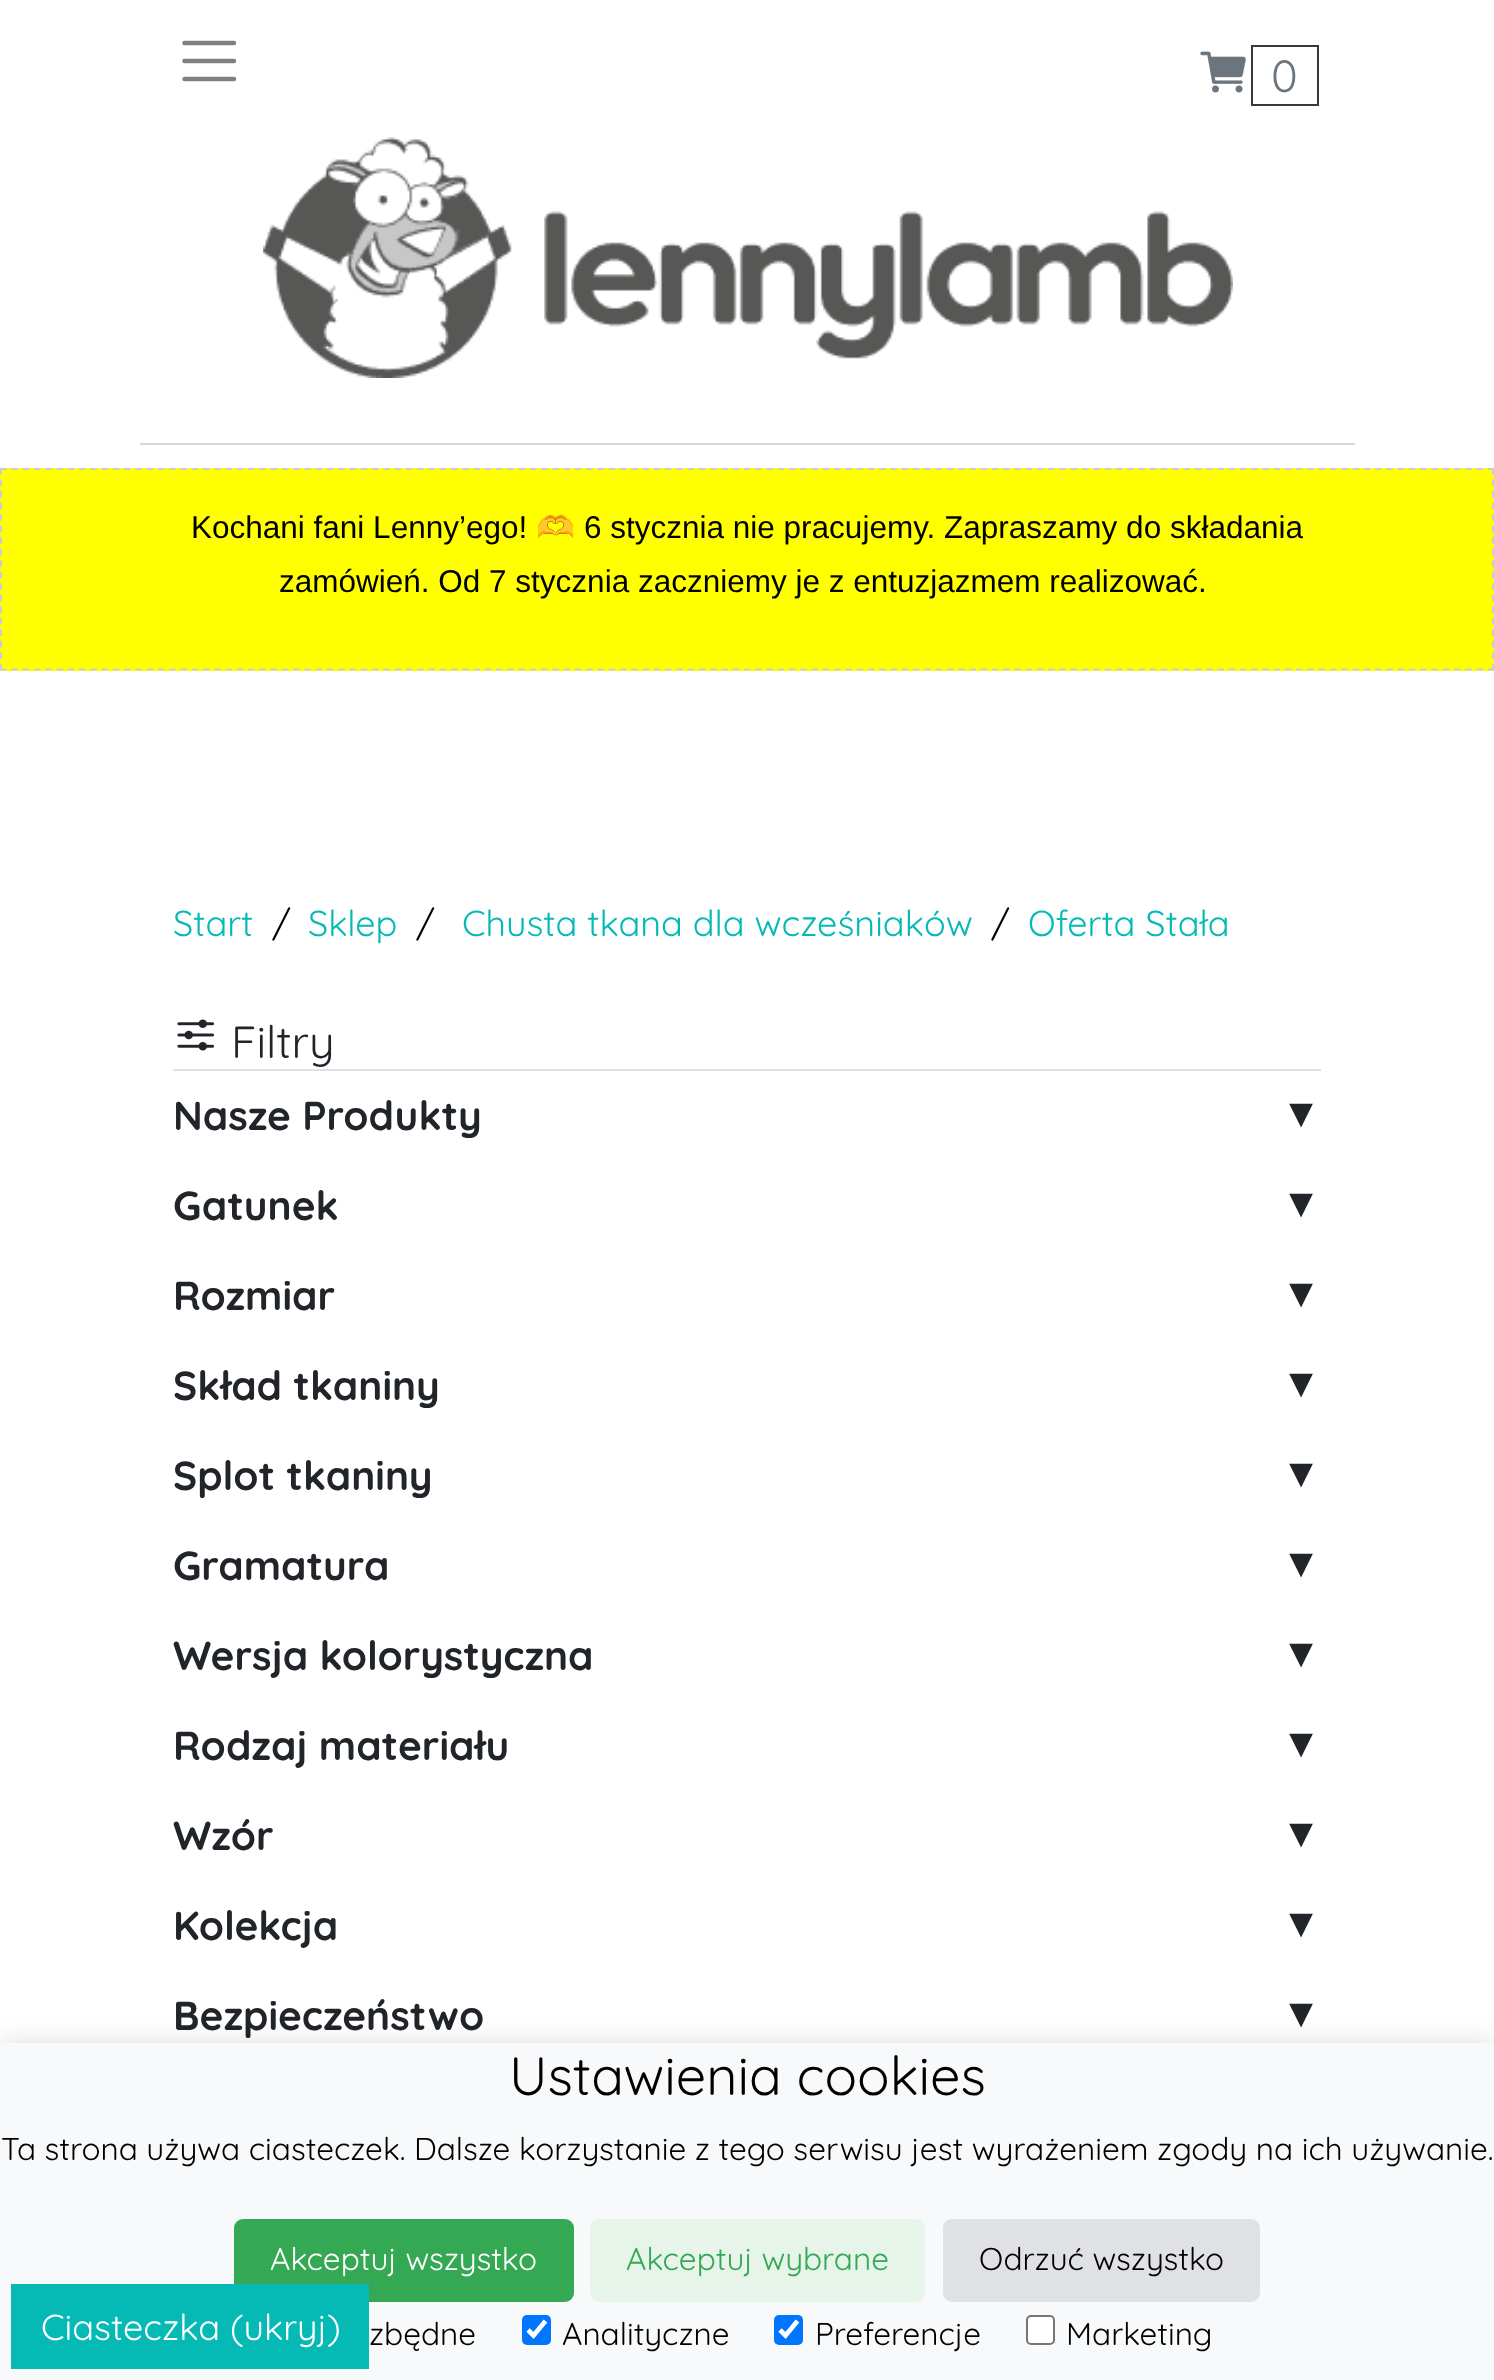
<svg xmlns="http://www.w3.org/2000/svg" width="1494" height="2380">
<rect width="100%" height="100%" fill="#fff"/>
<rect x="140" y="443" width="1215" height="2" fill="#d8d8d8"/>
<path d="M184.5 43h49.5m-49.5 18h49.5m-49.5 18h49.5" fill="none" stroke="#808080" stroke-width="4.5" stroke-linecap="round"/>
<image x="1200" y="51" width="46" height="42" href="media/1.png"/>
<rect x="1252" y="46" width="66" height="59" fill="none" stroke="#343a40" stroke-width="2"/>
<text x="1271" y="92" style="font-family:Quicksand;font-size:45px;fill:#6c757d">0</text>
<image x="263" y="137" width="970" height="241" href="media/2.png"/>
<rect y="468" width="1494" height="203" fill="#ff0"/>
<path d="M0 469h1494" fill="none" stroke="#ccc" stroke-width="2.2" stroke-dasharray="6.75 4.52"/>
<path d="M1493 468v202.5" fill="none" stroke="#ccc" stroke-width="2.2" stroke-dasharray="6.75 4.77"/>
<path d="M0 669.5h1494" fill="none" stroke="#ccc" stroke-width="2.2" stroke-dasharray="6.75 4.52"/>
<path d="M1 468v202.5" fill="none" stroke="#ccc" stroke-width="2.2" stroke-dasharray="6.75 4.77"/>
<text x="191" y="538" style="font-family:Liberation Sans;font-size:31.5px;fill:#000">Kochani fani Lenny’ego!</text>
<text x="536" y="538" style="font-family:Noto Color Emoji;font-size:31.5px;fill:#000">🫶</text>
<text x="584" y="538" style="font-family:Liberation Sans;font-size:31.5px;fill:#000">6 stycznia nie pracujemy. Zapraszamy do składania</text>
<text x="279" y="592" style="font-family:Liberation Sans;font-size:31.5px;fill:#000">zamówień. Od 7 stycznia zaczniemy je z entuzjazmem realizować.</text>
<text x="173" y="936" style="font-family:Quicksand;font-size:36px;fill:#05bab4">Start</text>
<text x="272" y="936" style="font-family:Quicksand;font-size:36px;fill:#000">/</text>
<text x="308" y="936" style="font-family:Quicksand;font-size:36px;fill:#05bab4">Sklep</text>
<text x="416" y="936" style="font-family:Quicksand;font-size:36px;fill:#000">/</text>
<text x="462" y="936" style="font-family:Quicksand;font-size:36px;fill:#05bab4">Chusta tkana dla wcześniaków</text>
<text x="991" y="936" style="font-family:Quicksand;font-size:36px;fill:#000">/</text>
<text x="1028" y="936" style="font-family:Quicksand;font-size:36px;fill:#05bab4">Oferta Stała</text>
<rect x="173" y="1069" width="1148" height="2" fill="#dee2e6"/>
<image x="177" y="1019" width="38" height="32" href="media/3.png"/>
<text x="231" y="1058" style="font-family:Quicksand;font-size:45px;fill:#212529">Filtry</text>
<text x="173" y="1130" style="font-family:Quicksand;font-size:40.5px;font-weight:bold;fill:#212529">Nasze Produkty</text>
<text x="1281" y="1127" style="font-family:Liberation Sans;font-size:40.5px;font-weight:bold;fill:#212529">▼</text>
<text x="173" y="1220" style="font-family:Quicksand;font-size:40.5px;font-weight:bold;fill:#212529">Gatunek</text>
<text x="1281" y="1217" style="font-family:Liberation Sans;font-size:40.5px;font-weight:bold;fill:#212529">▼</text>
<text x="173" y="1310" style="font-family:Quicksand;font-size:40.5px;font-weight:bold;fill:#212529">Rozmiar</text>
<text x="1281" y="1307" style="font-family:Liberation Sans;font-size:40.5px;font-weight:bold;fill:#212529">▼</text>
<text x="173" y="1400" style="font-family:Quicksand;font-size:40.5px;font-weight:bold;fill:#212529">Skład tkaniny</text>
<text x="1281" y="1397" style="font-family:Liberation Sans;font-size:40.5px;font-weight:bold;fill:#212529">▼</text>
<text x="173" y="1490" style="font-family:Quicksand;font-size:40.5px;font-weight:bold;fill:#212529">Splot tkaniny</text>
<text x="1281" y="1487" style="font-family:Liberation Sans;font-size:40.5px;font-weight:bold;fill:#212529">▼</text>
<text x="173" y="1580" style="font-family:Quicksand;font-size:40.5px;font-weight:bold;fill:#212529">Gramatura</text>
<text x="1281" y="1577" style="font-family:Liberation Sans;font-size:40.5px;font-weight:bold;fill:#212529">▼</text>
<text x="173" y="1670" style="font-family:Quicksand;font-size:40.5px;font-weight:bold;fill:#212529">Wersja kolorystyczna</text>
<text x="1281" y="1667" style="font-family:Liberation Sans;font-size:40.5px;font-weight:bold;fill:#212529">▼</text>
<text x="173" y="1760" style="font-family:Quicksand;font-size:40.5px;font-weight:bold;fill:#212529">Rodzaj materiału</text>
<text x="1281" y="1757" style="font-family:Liberation Sans;font-size:40.5px;font-weight:bold;fill:#212529">▼</text>
<text x="173" y="1850" style="font-family:Quicksand;font-size:40.5px;font-weight:bold;fill:#212529">Wzór</text>
<text x="1281" y="1847" style="font-family:Liberation Sans;font-size:40.5px;font-weight:bold;fill:#212529">▼</text>
<text x="173" y="1940" style="font-family:Quicksand;font-size:40.5px;font-weight:bold;fill:#212529">Kolekcja</text>
<text x="1281" y="1937" style="font-family:Liberation Sans;font-size:40.5px;font-weight:bold;fill:#212529">▼</text>
<text x="173" y="2030" style="font-family:Quicksand;font-size:40.5px;font-weight:bold;fill:#212529">Bezpieczeństwo</text>
<text x="1281" y="2027" style="font-family:Liberation Sans;font-size:40.5px;font-weight:bold;fill:#212529">▼</text>
<rect y="2039" width="1494" height="337" fill="#0000001a" filter="blur(11px)"/>
<rect y="2043" width="1494" height="337" fill="#f8f9fa"/>
<text x="509" y="2095" style="font-family:Quicksand;font-size:54px;fill:#000">Ustawienia cookies</text>
<text x="1" y="2160" style="font-family:Quicksand;font-size:31.5px;fill:#000">Ta strona używa ciasteczek. Dalsze korzystanie z tego serwisu jest wyrażeniem zgody na ich używanie.</text>
<rect x="234" y="2219" width="340" height="83" rx="9" fill="#34a853"/>
<text x="270" y="2270" style="font-family:Quicksand;font-size:31.5px;fill:#fff">Akceptuj wszystko</text>
<rect x="590" y="2219" width="335" height="83" rx="9" fill="#e6f4ea"/>
<text x="626" y="2270" style="font-family:Quicksand;font-size:31.5px;fill:#34a853">Akceptuj wybrane</text>
<rect x="943" y="2219" width="317" height="83" rx="9" fill="#dfe1e5"/>
<text x="979" y="2270" style="font-family:Quicksand;font-size:31.5px;fill:#000">Odrzuć wszystko</text>
<text x="369" y="2345" style="font-family:Quicksand;font-size:31.5px;fill:#000">zbędne</text>
<rect x="522" y="2315" width="29" height="30" rx="5" fill="#0075ff"/>
<path d="M528 2330l5.5 5.5l12-14.5" fill="none" stroke="#fff" stroke-width="4.7"/>
<text x="562" y="2345" style="font-family:Quicksand;font-size:31.5px;fill:#000">Analityczne</text>
<rect x="774" y="2315" width="29" height="30" rx="5" fill="#0075ff"/>
<path d="M780 2330l5.5 5.5l12-14.5" fill="none" stroke="#fff" stroke-width="4.7"/>
<text x="815" y="2345" style="font-family:Quicksand;font-size:31.5px;fill:#000">Preferencje</text>
<rect x="1027" y="2316" width="27" height="28" rx="4" fill="#fff" stroke="#767676" stroke-width="2"/>
<text x="1066" y="2345" style="font-family:Quicksand;font-size:31.5px;fill:#000">Marketing</text>
<rect x="11" y="2284" width="358" height="85" fill="#05bab4"/>
<text x="41" y="2340" style="font-family:Quicksand;font-size:36px;fill:#fff">Ciasteczka (ukryj)</text>
</svg>
